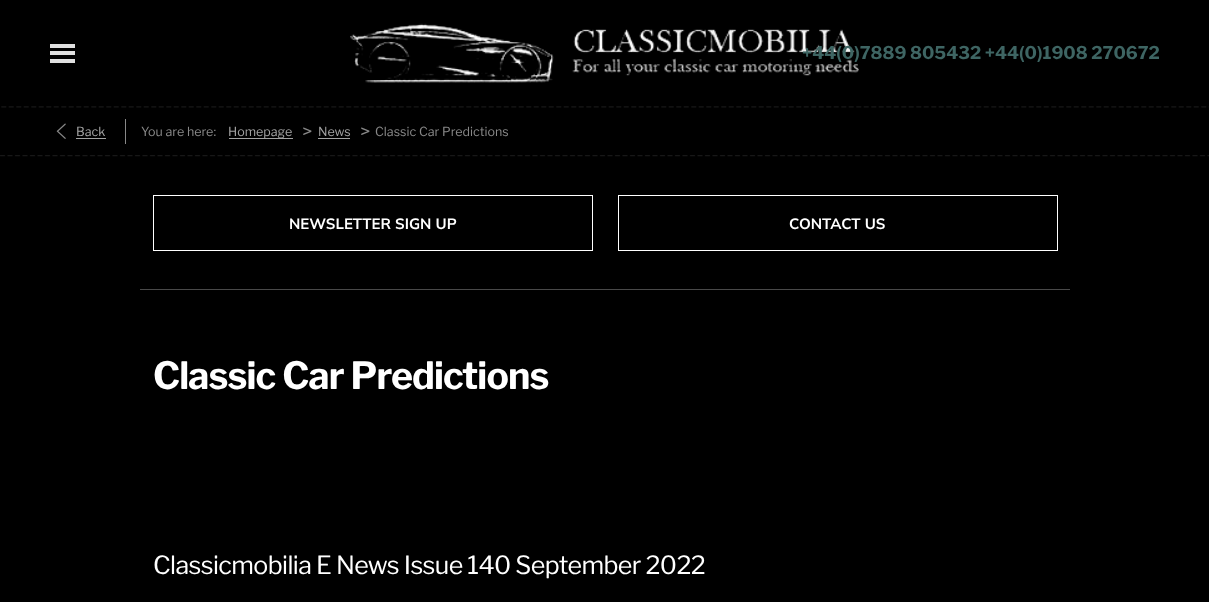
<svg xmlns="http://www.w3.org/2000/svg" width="1209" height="602">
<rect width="100%" height="100%" fill="#000"/>
<image x="350" y="23" width="509" height="60" href="media/1.png"/>
<rect x="50" y="51" width="25" height="4" fill="#e0e0e0"/>
<rect x="50" y="44" width="25" height="4" fill="#e0e0e0"/>
<rect x="50" y="59" width="25" height="4" fill="#e0e0e0"/>
<text x="802" y="59" style="font-family:Libre Franklin;font-size:17.5px;font-weight:100;fill:#3e6563">+44(0)7889 805432 +44(0)1908 270672</text>
<image x="1" y="106" width="1208" height="2" href="media/2.png"/>
<image x="0" y="155" width="1209" height="2" href="media/3.png"/>
<image x="56" y="123" width="10" height="16" href="media/4.png"/>
<text x="76" y="136" style="font-family:'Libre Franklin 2';font-size:12.5px;font-weight:100;fill:#a2a2a2">Back</text>
<rect x="76" y="138" width="30" height="1" fill="#a2a2a2"/>
<rect x="125" y="119" width="1" height="25" fill="#888"/>
<text x="141" y="136" style="font-family:'Libre Franklin 2';font-size:12.5px;font-weight:100;fill:#888">You are here:</text>
<rect x="229" y="138" width="64" height="1" fill="#a2a2a2"/>
<text x="228" y="136" style="font-family:'Libre Franklin 2';font-size:12.5px;font-weight:100;fill:#a2a2a2">Homepage</text>
<text x="302" y="138" style="font-family:'Libre Franklin 2';font-size:19px;font-weight:100;fill:#888">&gt;</text>
<text x="318" y="136" style="font-family:'Libre Franklin 2';font-size:12.5px;font-weight:100;fill:#a2a2a2">News</text>
<rect x="318" y="138" width="32" height="1" fill="#a2a2a2"/>
<text x="360" y="138" style="font-family:'Libre Franklin 2';font-size:19px;font-weight:100;fill:#888">&gt;</text>
<text x="375" y="136" style="font-family:'Libre Franklin 2';font-size:12.5px;font-weight:100;fill:#888">Classic Car Predictions</text>
<rect x="153.5" y="195.5" width="439" height="55" fill="none" stroke="#fff"/>
<text x="289" y="229" style="font-family:Mulish;font-size:15px;font-weight:200;fill:#fff">NEWSLETTER SIGN UP</text>
<rect x="618.5" y="195.5" width="439" height="55" fill="none" stroke="#fff"/>
<text x="789" y="229" style="font-family:Mulish;font-size:15px;font-weight:200;fill:#fff">CONTACT US</text>
<rect x="140" y="289" width="930" height="1" fill="#494949"/>
<text x="153" y="389" style="font-family:Libre Franklin;font-size:37.5px;font-weight:100;letter-spacing:-0.9px;fill:#fff">Classic Car Predictions</text>
<text x="153" y="574" style="font-family:'Libre Franklin 2';font-size:25px;font-weight:100;letter-spacing:-0.6px;fill:#fff">Classicmobilia E News Issue 140 September 2022</text>
</svg>
